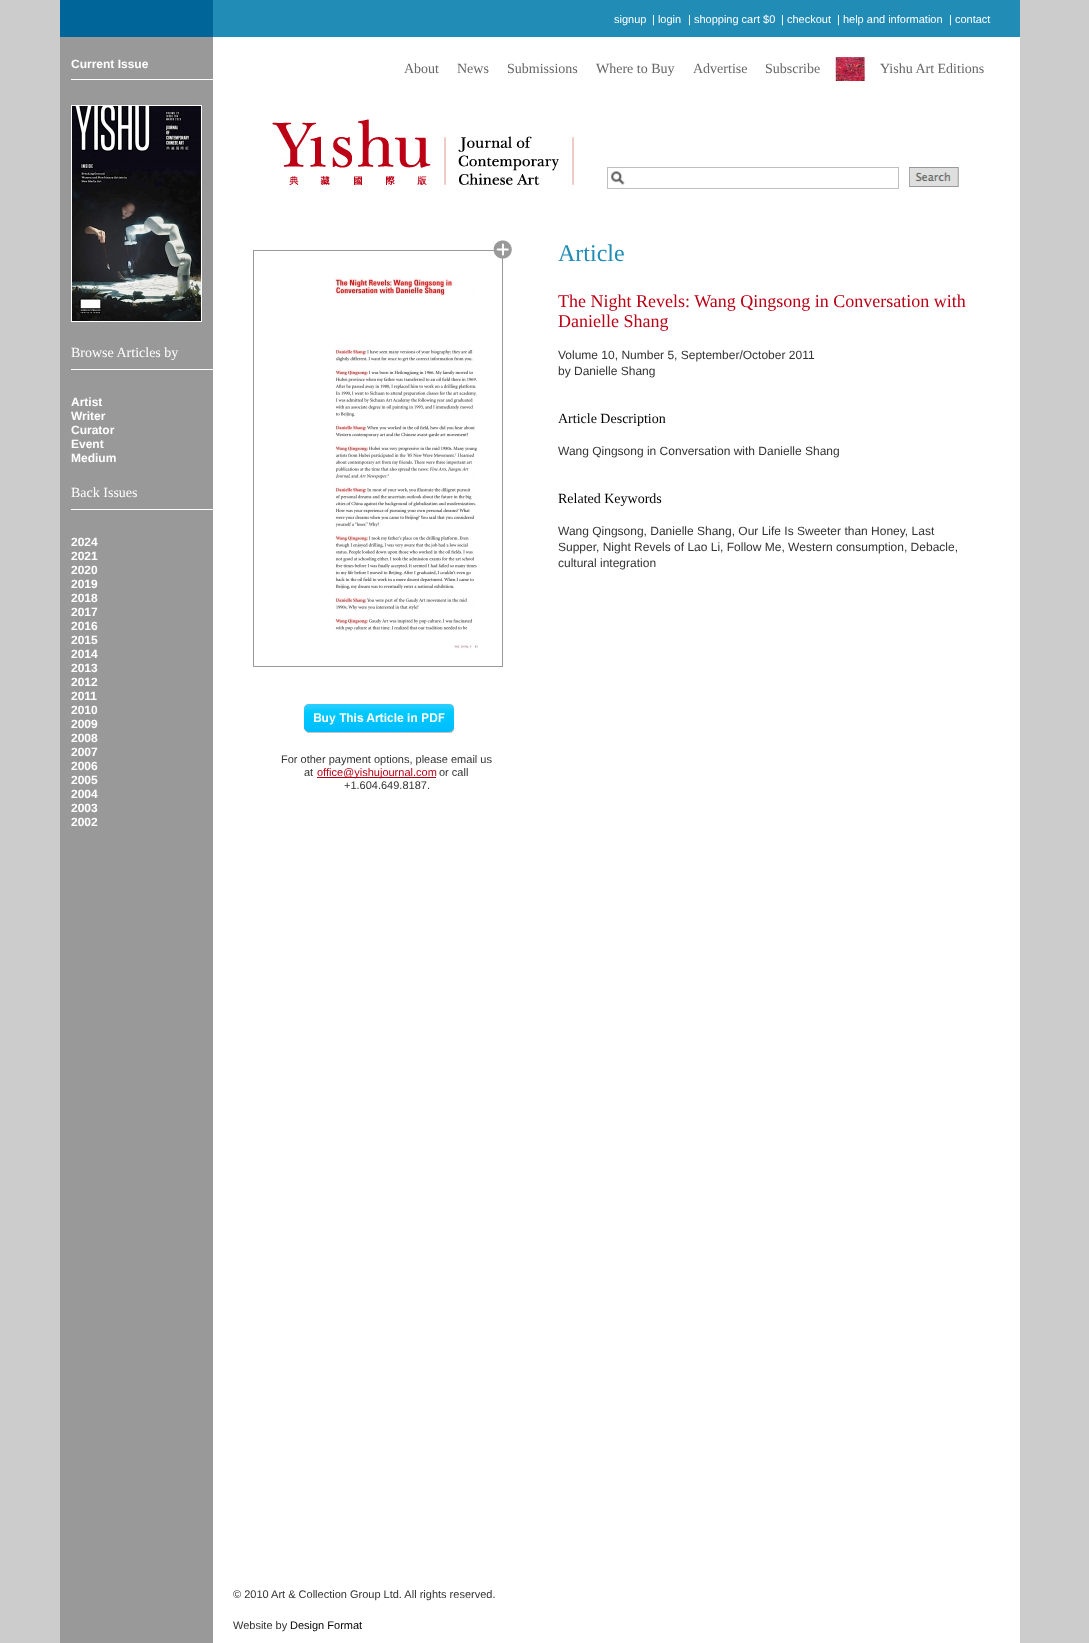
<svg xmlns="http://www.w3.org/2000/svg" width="1089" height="1643">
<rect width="100%" height="100%" fill="#ccc"/>
<rect x="60" width="153" height="37" fill="#006599"/>
<rect x="213" width="807" height="37" fill="#218cb6"/>
<text x="614" y="23" style="font-family:Liberation Sans;font-size:11px;fill:#fff">signup</text>
<text x="652" y="23" style="font-family:Liberation Sans;font-size:11px;fill:#fff">| login</text>
<text x="688" y="23" style="font-family:Liberation Sans;font-size:11px;fill:#fff">| shopping cart $0</text>
<text x="781" y="23" style="font-family:Liberation Sans;font-size:11px;fill:#fff">| checkout</text>
<text x="837" y="23" style="font-family:Liberation Sans;font-size:11px;fill:#fff">| help and information</text>
<text x="949" y="23" style="font-family:Liberation Sans;font-size:11px;fill:#fff">| contact</text>
<rect x="60" y="37" width="153" height="1606" fill="#999"/>
<rect x="71" y="79" width="142" height="1" fill="#fff"/>
<text x="71" y="68" style="font-family:Liberation Sans;font-size:12px;font-weight:bold;fill:#fff">Current Issue</text>
<rect x="71.5" y="105.5" width="130" height="216" fill="none" stroke="#fff"/>
<image x="72" y="106" width="129" height="215" href="media/1.png"/>
<rect x="71" y="369" width="142" height="1" fill="#fff"/>
<text x="71" y="357" style="font-family:Liberation Serif;font-size:14px;fill:#fff">Browse Articles by</text>
<text x="71" y="406" style="font-family:Liberation Sans;font-size:12px;font-weight:bold;fill:#fff">Artist</text>
<text x="71" y="420" style="font-family:Liberation Sans;font-size:12px;font-weight:bold;fill:#fff">Writer</text>
<text x="71" y="434" style="font-family:Liberation Sans;font-size:12px;font-weight:bold;fill:#fff">Curator</text>
<text x="71" y="448" style="font-family:Liberation Sans;font-size:12px;font-weight:bold;fill:#fff">Event</text>
<text x="71" y="462" style="font-family:Liberation Sans;font-size:12px;font-weight:bold;fill:#fff">Medium</text>
<rect x="71" y="509" width="142" height="1" fill="#fff"/>
<text x="71" y="497" style="font-family:Liberation Serif;font-size:14px;fill:#fff">Back Issues</text>
<text x="71" y="546" style="font-family:Liberation Sans;font-size:12px;font-weight:bold;fill:#fff">2024</text>
<text x="71" y="560" style="font-family:Liberation Sans;font-size:12px;font-weight:bold;fill:#fff">2021</text>
<text x="71" y="574" style="font-family:Liberation Sans;font-size:12px;font-weight:bold;fill:#fff">2020</text>
<text x="71" y="588" style="font-family:Liberation Sans;font-size:12px;font-weight:bold;fill:#fff">2019</text>
<text x="71" y="602" style="font-family:Liberation Sans;font-size:12px;font-weight:bold;fill:#fff">2018</text>
<text x="71" y="616" style="font-family:Liberation Sans;font-size:12px;font-weight:bold;fill:#fff">2017</text>
<text x="71" y="630" style="font-family:Liberation Sans;font-size:12px;font-weight:bold;fill:#fff">2016</text>
<text x="71" y="644" style="font-family:Liberation Sans;font-size:12px;font-weight:bold;fill:#fff">2015</text>
<text x="71" y="658" style="font-family:Liberation Sans;font-size:12px;font-weight:bold;fill:#fff">2014</text>
<text x="71" y="672" style="font-family:Liberation Sans;font-size:12px;font-weight:bold;fill:#fff">2013</text>
<text x="71" y="686" style="font-family:Liberation Sans;font-size:12px;font-weight:bold;fill:#fff">2012</text>
<text x="71" y="700" style="font-family:Liberation Sans;font-size:12px;font-weight:bold;fill:#fff">2011</text>
<text x="71" y="714" style="font-family:Liberation Sans;font-size:12px;font-weight:bold;fill:#fff">2010</text>
<text x="71" y="728" style="font-family:Liberation Sans;font-size:12px;font-weight:bold;fill:#fff">2009</text>
<text x="71" y="742" style="font-family:Liberation Sans;font-size:12px;font-weight:bold;fill:#fff">2008</text>
<text x="71" y="756" style="font-family:Liberation Sans;font-size:12px;font-weight:bold;fill:#fff">2007</text>
<text x="71" y="770" style="font-family:Liberation Sans;font-size:12px;font-weight:bold;fill:#fff">2006</text>
<text x="71" y="784" style="font-family:Liberation Sans;font-size:12px;font-weight:bold;fill:#fff">2005</text>
<text x="71" y="798" style="font-family:Liberation Sans;font-size:12px;font-weight:bold;fill:#fff">2004</text>
<text x="71" y="812" style="font-family:Liberation Sans;font-size:12px;font-weight:bold;fill:#fff">2003</text>
<text x="71" y="826" style="font-family:Liberation Sans;font-size:12px;font-weight:bold;fill:#fff">2002</text>
<rect x="213" y="37" width="807" height="1606" fill="#fff"/>
<text x="404" y="73" style="font-family:Liberation Serif;font-size:14px;fill:#666">About</text>
<text x="457" y="73" style="font-family:Liberation Serif;font-size:14px;fill:#666">News</text>
<text x="507" y="73" style="font-family:Liberation Serif;font-size:14px;fill:#666">Submissions</text>
<text x="596" y="73" style="font-family:Liberation Serif;font-size:14px;fill:#666">Where to Buy</text>
<text x="693" y="73" style="font-family:Liberation Serif;font-size:14px;fill:#666">Advertise</text>
<text x="765" y="73" style="font-family:Liberation Serif;font-size:14px;fill:#666">Subscribe</text>
<image x="835" y="57" width="30" height="24" href="media/2.png"/>
<text x="880" y="73" style="font-family:Liberation Serif;font-size:14px;fill:#666">Yishu Art Editions</text>
<image x="271" y="118" width="306" height="72" href="media/3.png"/>
<rect x="607.5" y="167.5" width="291" height="21" fill="none" stroke="#bfbfbf"/>
<image x="611" y="171" width="14" height="14" href="media/4.png"/>
<image x="909" y="167" width="50" height="20" href="media/5.png"/>
<text x="558" y="261" style="font-family:Liberation Serif;font-size:24px;fill:#218cb6">Article</text>
<text x="558" y="307" style="font-family:Liberation Serif;font-size:18px;fill:#bb0015">The Night Revels: Wang Qingsong in Conversation with</text>
<text x="558" y="327" style="font-family:Liberation Serif;font-size:18px;fill:#bb0015">Danielle Shang</text>
<text x="558" y="359" style="font-family:Liberation Sans;font-size:12px;fill:#333">Volume 10, Number 5, September/October 2011</text>
<text x="558" y="375" style="font-family:Liberation Sans;font-size:12px;fill:#333">by Danielle Shang</text>
<text x="558" y="423" style="font-family:Liberation Serif;font-size:14px;fill:#000">Article Description</text>
<text x="558" y="455" style="font-family:Liberation Sans;font-size:12px;fill:#333">Wang Qingsong in Conversation with Danielle Shang</text>
<text x="558" y="503" style="font-family:Liberation Serif;font-size:14px;fill:#000">Related Keywords</text>
<text x="558" y="535" style="font-family:Liberation Sans;font-size:12px;fill:#333">Wang Qingsong, Danielle Shang, Our Life Is Sweeter than Honey, Last</text>
<text x="558" y="551" style="font-family:Liberation Sans;font-size:12px;fill:#333">Supper, Night Revels of Lao Li, Follow Me, Western consumption, Debacle,</text>
<text x="558" y="567" style="font-family:Liberation Sans;font-size:12px;fill:#333">cultural integration</text>
<rect x="253.5" y="250.5" width="249" height="416" fill="none" stroke="#999"/>
<image x="493" y="240" width="19" height="19" href="media/6.png"/>
<image x="334" y="278" width="144" height="371" href="media/7.png"/>
<image x="304" y="704" width="150" height="29" href="media/8.png"/>
<text x="281" y="763" style="font-family:Liberation Sans;font-size:11px;fill:#333">For other payment options, please email us</text>
<text x="304" y="776" style="font-family:Liberation Sans;font-size:11px;fill:#333">at</text>
<rect x="317" y="777" width="119" height="1" fill="#bb0015"/>
<text x="317" y="776" style="font-family:Liberation Sans;font-size:11px;fill:#bb0015">office@yishujournal.com</text>
<text x="439" y="776" style="font-family:Liberation Sans;font-size:11px;fill:#333">or call</text>
<text x="344" y="789" style="font-family:Liberation Sans;font-size:11px;fill:#333">+1.604.649.8187.</text>
<text x="233" y="1598" style="font-family:Liberation Sans;font-size:11px;fill:#333">© 2010 Art &amp; Collection Group Ltd. All rights reserved.</text>
<text x="233" y="1629" style="font-family:Liberation Sans;font-size:11px;fill:#333">Website by</text>
<text x="290" y="1629" style="font-family:Liberation Sans;font-size:11px;fill:#000">Design Format</text>
</svg>
